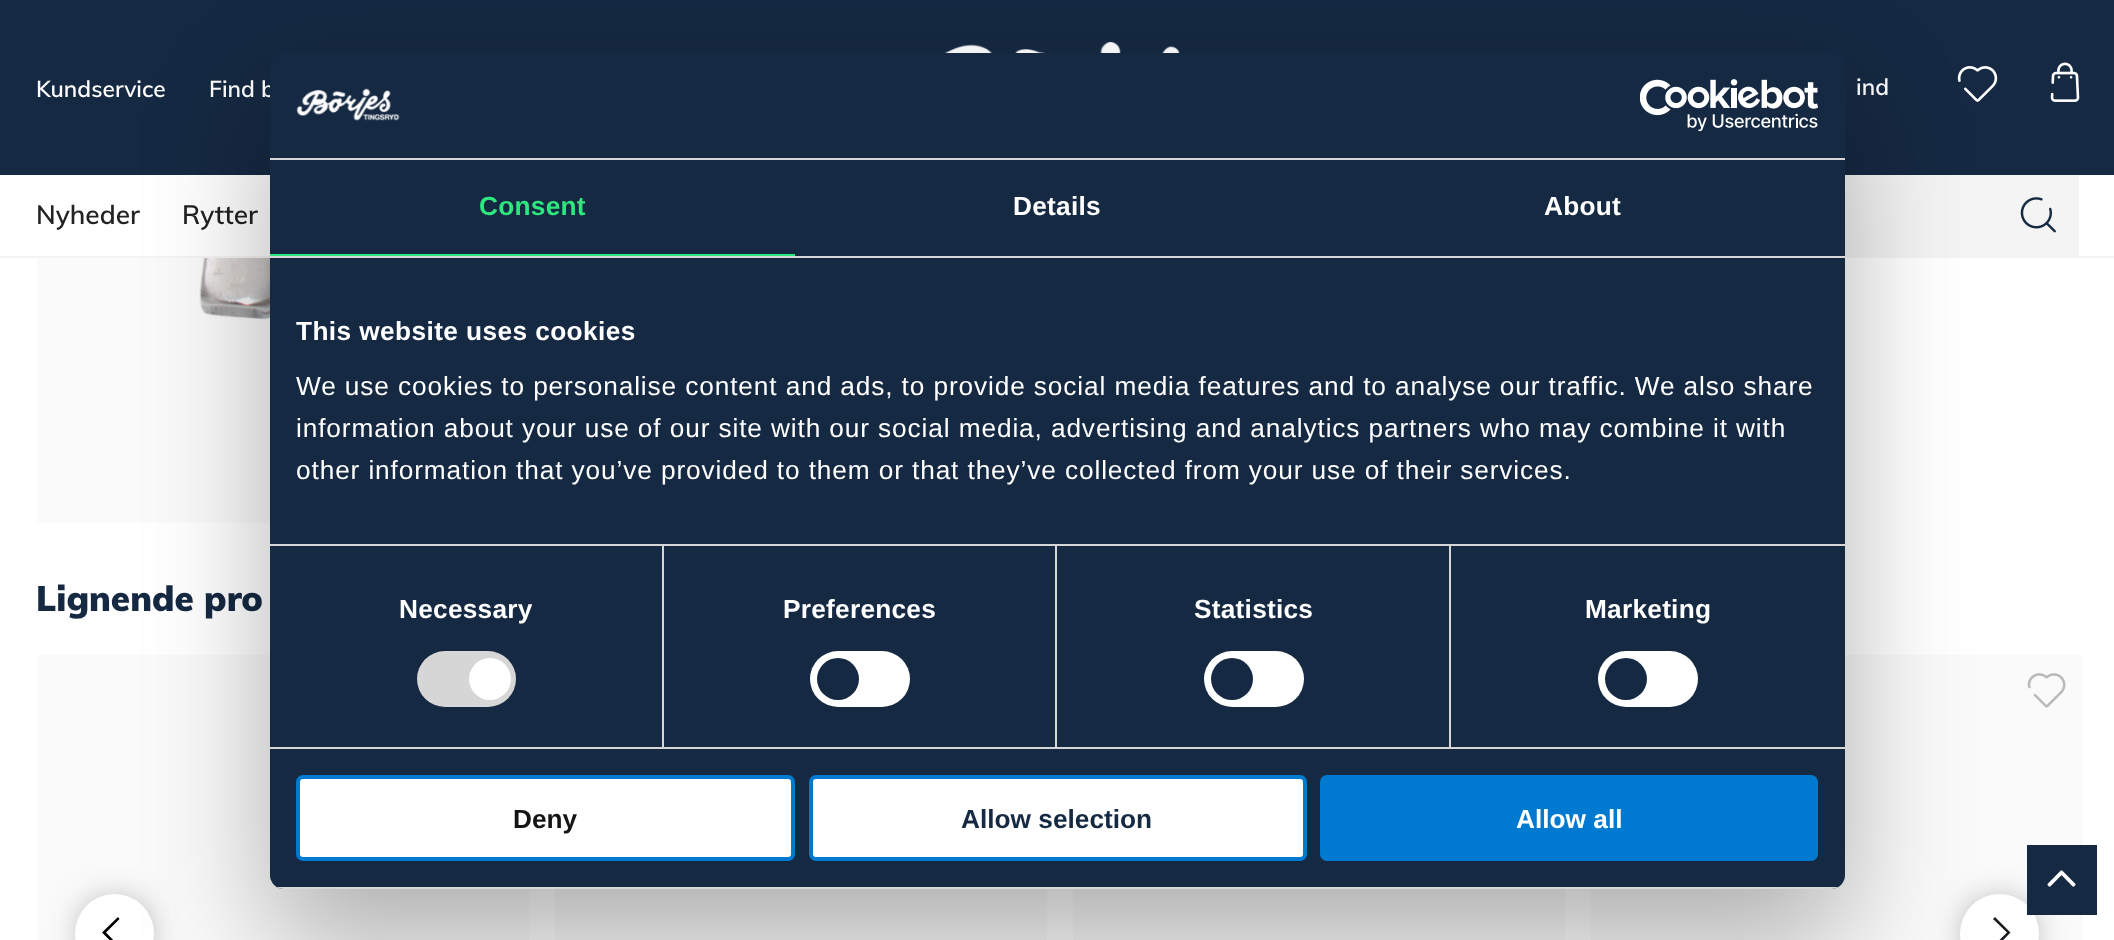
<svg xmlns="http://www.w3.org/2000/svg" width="2114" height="940">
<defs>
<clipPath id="clip1"><rect x="270" y="53" width="1575" height="836" rx="14"/></clipPath>
</defs>
<rect width="100%" height="100%" fill="#fff"/>
<rect width="2114" height="175" fill="#152942"/>
<image x="944" y="42" width="236" height="11" href="media/1.png"/>
<text x="36" y="97" style="font-family:Muli;font-size:22.75px;font-weight:600;fill:#fff">Kundservice</text>
<text x="209" y="97" style="font-family:Muli;font-size:22.75px;font-weight:600;fill:#fff">Find b</text>
<text x="1856" y="95" style="font-family:Muli;font-size:22.75px;font-weight:600;fill:#fff">ind</text>
<image x="1957" y="66" width="41" height="36" href="media/2.png"/>
<image x="2050" y="62" width="30" height="40" href="media/3.png"/>
<rect x="1845" y="175" width="234" height="81" fill="#f4f4f4"/>
<image x="2020" y="197" width="36" height="36" href="media/4.png"/>
<rect y="256" width="2114" height="2" fill="#f4f4f4"/>
<text x="36" y="224" style="font-family:Muli;font-size:26.25px;font-weight:600;fill:#222">Nyheder</text>
<text x="182" y="224" style="font-family:Muli;font-size:26.25px;font-weight:600;fill:#222">Rytter</text>
<rect x="37" y="258" width="233" height="265" fill="#fafafa"/>
<image x="199" y="258" width="71" height="136" href="media/5.png"/>
<text x="36" y="611" style="font-family:Muli;font-size:35px;font-weight:900;fill:#152942">Lignende pro</text>
<rect x="37" y="655" width="492" height="285" fill="#fafafa"/>
<rect x="555" y="889" width="492" height="51" fill="#fafafa"/>
<rect x="1073" y="889" width="492" height="51" fill="#fafafa"/>
<rect x="1591" y="655" width="492" height="285" fill="#fafafa"/>
<image x="2027" y="673" width="39" height="35" href="media/6.png"/>
<rect x="88" y="907" width="54" height="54" rx="27" fill="#353535c2" filter="blur(19px)"/>
<circle cx="114.5" cy="933.5" r="39.5" fill="#fff"/>
<path d="M118 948.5l1.5-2l-13.5-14l13.5-13.5l-1.5-2l-16 15.5z" fill="#000"/>
<rect x="1972" y="907" width="55" height="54" rx="27" fill="#353535c2" filter="blur(19px)"/>
<circle cx="1999.5" cy="933.5" r="39.5" fill="#fff"/>
<path d="M1995 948.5l-2-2l14-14l-14-13.5l2-2l15.5 15.5z" fill="#1c1b1f"/>
<rect x="270" y="109" width="1575" height="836" rx="14" fill="#0000004d" filter="blur(59.5px)"/>
<rect x="270" y="53" width="1575" height="836" rx="14" fill="#152942"/>
<rect x="270" y="158" width="1575" height="2" fill="#d6d6d6"/>
<image x="296" y="88" width="104" height="33" href="media/7.png"/>
<image x="1640" y="79" width="178" height="52" href="media/8.png"/>
<rect x="270" y="256" width="1575" height="2" fill="#d6d6d6"/>
<rect x="270" y="254" width="525" height="2" fill="#2ce87e"/>
<text x="479" y="215" style="font-family:Liberation Sans;font-size:26.25px;font-weight:bold;letter-spacing:0.25px;fill:#2ce87e">Consent</text>
<text x="1013" y="215" style="font-family:Liberation Sans;font-size:26.25px;font-weight:bold;letter-spacing:0.25px;fill:#fff">Details</text>
<text x="1544" y="215" style="font-family:Liberation Sans;font-size:26.25px;font-weight:bold;letter-spacing:0.25px;fill:#fff">About</text>
<rect x="270" y="544" width="1575" height="2" fill="#d6d6d6"/>
<text x="296" y="340" style="font-family:Liberation Sans;font-size:26.25px;font-weight:bold;letter-spacing:0.4px;fill:#fff">This website uses cookies</text>
<text x="296" y="395" style="font-family:Liberation Sans;font-size:26.25px;letter-spacing:0.88px;fill:#fff">We use cookies to personalise content and ads, to provide social media features and to analyse our traffic. We also share</text>
<text x="296" y="437" style="font-family:Liberation Sans;font-size:26.25px;letter-spacing:0.88px;fill:#fff">information about your use of our site with our social media, advertising and analytics partners who may combine it with</text>
<text x="296" y="479" style="font-family:Liberation Sans;font-size:26.25px;letter-spacing:0.88px;fill:#fff">other information that you’ve provided to them or that they’ve collected from your use of their services.</text>
<rect x="270" y="747" width="1575" height="2" fill="#d6d6d6"/>
<rect x="662" y="546" width="2" height="201" fill="#d6d6d6"/>
<text x="399" y="618" style="font-family:Liberation Sans;font-size:26.25px;font-weight:bold;letter-spacing:0.25px;fill:#fff">Necessary</text>
<rect x="417" y="651" width="99" height="56" rx="28" fill="#d6d6d6"/>
<circle cx="490" cy="679" r="21" fill="#fff"/>
<rect x="1055" y="546" width="2" height="201" fill="#d6d6d6"/>
<text x="783" y="618" style="font-family:Liberation Sans;font-size:26.25px;font-weight:bold;letter-spacing:0.25px;fill:#fff">Preferences</text>
<rect x="810" y="651" width="100" height="56" rx="28" fill="#fff"/>
<circle cx="838" cy="679" r="21" fill="#152942"/>
<rect x="1449" y="546" width="2" height="201" fill="#d6d6d6"/>
<text x="1194" y="618" style="font-family:Liberation Sans;font-size:26.25px;font-weight:bold;letter-spacing:0.25px;fill:#fff">Statistics</text>
<rect x="1204" y="651" width="100" height="56" rx="28" fill="#fff"/>
<circle cx="1232" cy="679" r="21" fill="#152942"/>
<text x="1585" y="618" style="font-family:Liberation Sans;font-size:26.25px;font-weight:bold;letter-spacing:0.25px;fill:#fff">Marketing</text>
<rect x="1598" y="651" width="100" height="56" rx="28" fill="#fff"/>
<circle cx="1626" cy="679" r="21" fill="#152942"/>
<g clip-path="url(#clip1)">
<rect x="270" y="887" width="1575" height="2" fill="#d6d6d6"/>
</g>
<rect x="298" y="777" width="495" height="82" rx="5" fill="#fff" stroke="#007ad1" stroke-width="4"/>
<text x="513" y="828" style="font-family:Liberation Sans;font-size:26.25px;font-weight:bold;fill:#141414">Deny</text>
<rect x="811" y="777" width="494" height="82" rx="5" fill="#fff" stroke="#007ad1" stroke-width="4"/>
<text x="961" y="828" style="font-family:Liberation Sans;font-size:26.25px;font-weight:bold;fill:#152942">Allow selection</text>
<rect x="1322" y="777" width="494" height="82" rx="5" fill="#007ad1" stroke="#007ad1" stroke-width="4"/>
<text x="1516" y="828" style="font-family:Liberation Sans;font-size:26.25px;font-weight:bold;fill:#fff">Allow all</text>
<rect x="2027" y="845" width="70" height="70" fill="#152942"/>
<image x="2047" y="870" width="29" height="17" href="media/9.png"/>
</svg>
